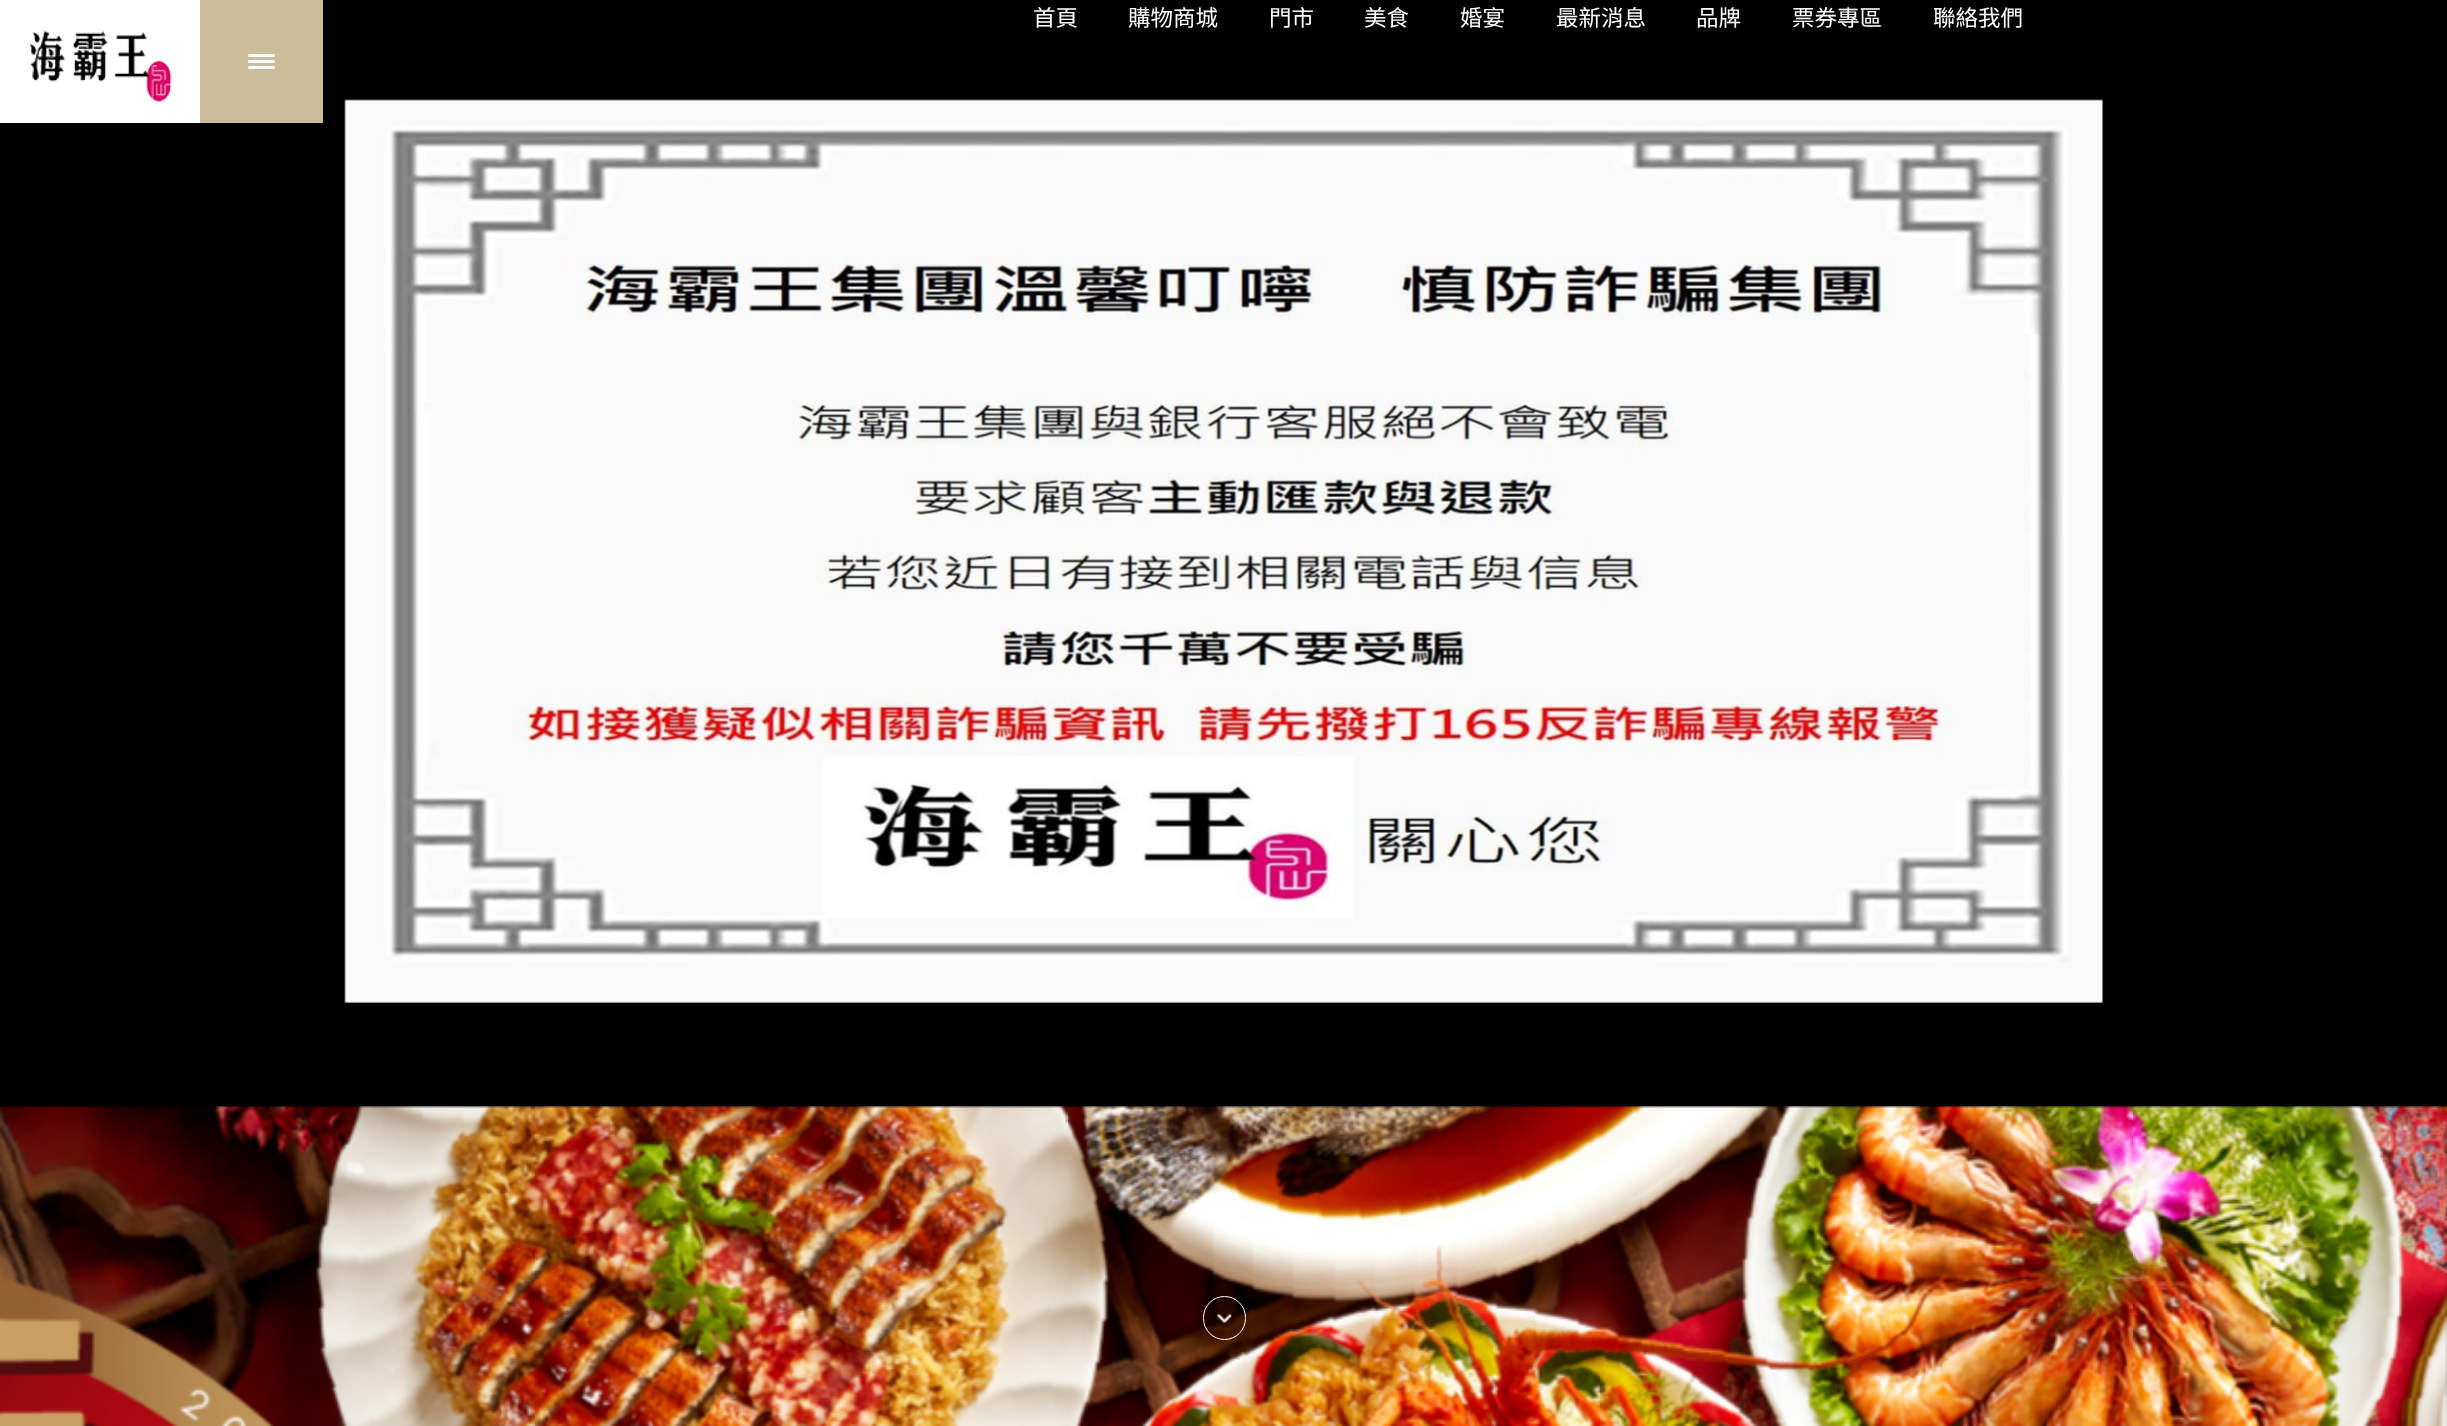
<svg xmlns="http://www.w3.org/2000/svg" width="2447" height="1426">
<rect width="100%" height="100%" fill="#000"/>
<rect width="200" height="123" fill="#fff"/>
<image x="29" y="31" width="143" height="71" href="media/1.png"/>
<rect x="200" width="123" height="123" fill="#cbbd9c"/>
<rect x="248" y="60" width="27" height="3" rx="1.5" fill="#fff"/>
<rect x="248" y="54" width="27" height="3" rx="1.5" fill="#fff"/>
<rect x="248" y="66" width="27" height="3" rx="1.5" fill="#fff"/>
<text x="1033" y="26" style="font-family:Noto Sans CJK TC;font-size:22.5px;fill:#fff">首頁</text>
<text x="1128" y="26" style="font-family:Noto Sans CJK TC;font-size:22.5px;fill:#fff">購物商城</text>
<text x="1269" y="26" style="font-family:Noto Sans CJK TC;font-size:22.5px;fill:#fff">門市</text>
<text x="1364" y="26" style="font-family:Noto Sans CJK TC;font-size:22.5px;fill:#fff">美食</text>
<text x="1460" y="26" style="font-family:Noto Sans CJK TC;font-size:22.5px;fill:#fff">婚宴</text>
<text x="1556" y="26" style="font-family:Noto Sans CJK TC;font-size:22.5px;fill:#fff">最新消息</text>
<text x="1696" y="26" style="font-family:Noto Sans CJK TC;font-size:22.5px;fill:#fff">品牌</text>
<text x="1792" y="26" style="font-family:Noto Sans CJK TC;font-size:22.5px;fill:#fff">票券專區</text>
<text x="1933" y="26" style="font-family:Noto Sans CJK TC;font-size:22.5px;fill:#fff">聯絡我們</text>
<image x="344" y="99" width="1760" height="904" href="media/2.png"/>
<image x="0" y="1106" width="2447" height="320" href="media/3.png"/>
<image x="1217" y="1313" width="15" height="10" href="media/4.png"/>
<rect x="1203.5" y="1296.5" width="42" height="43" rx="21" fill="none" stroke="#fff"/>
</svg>
